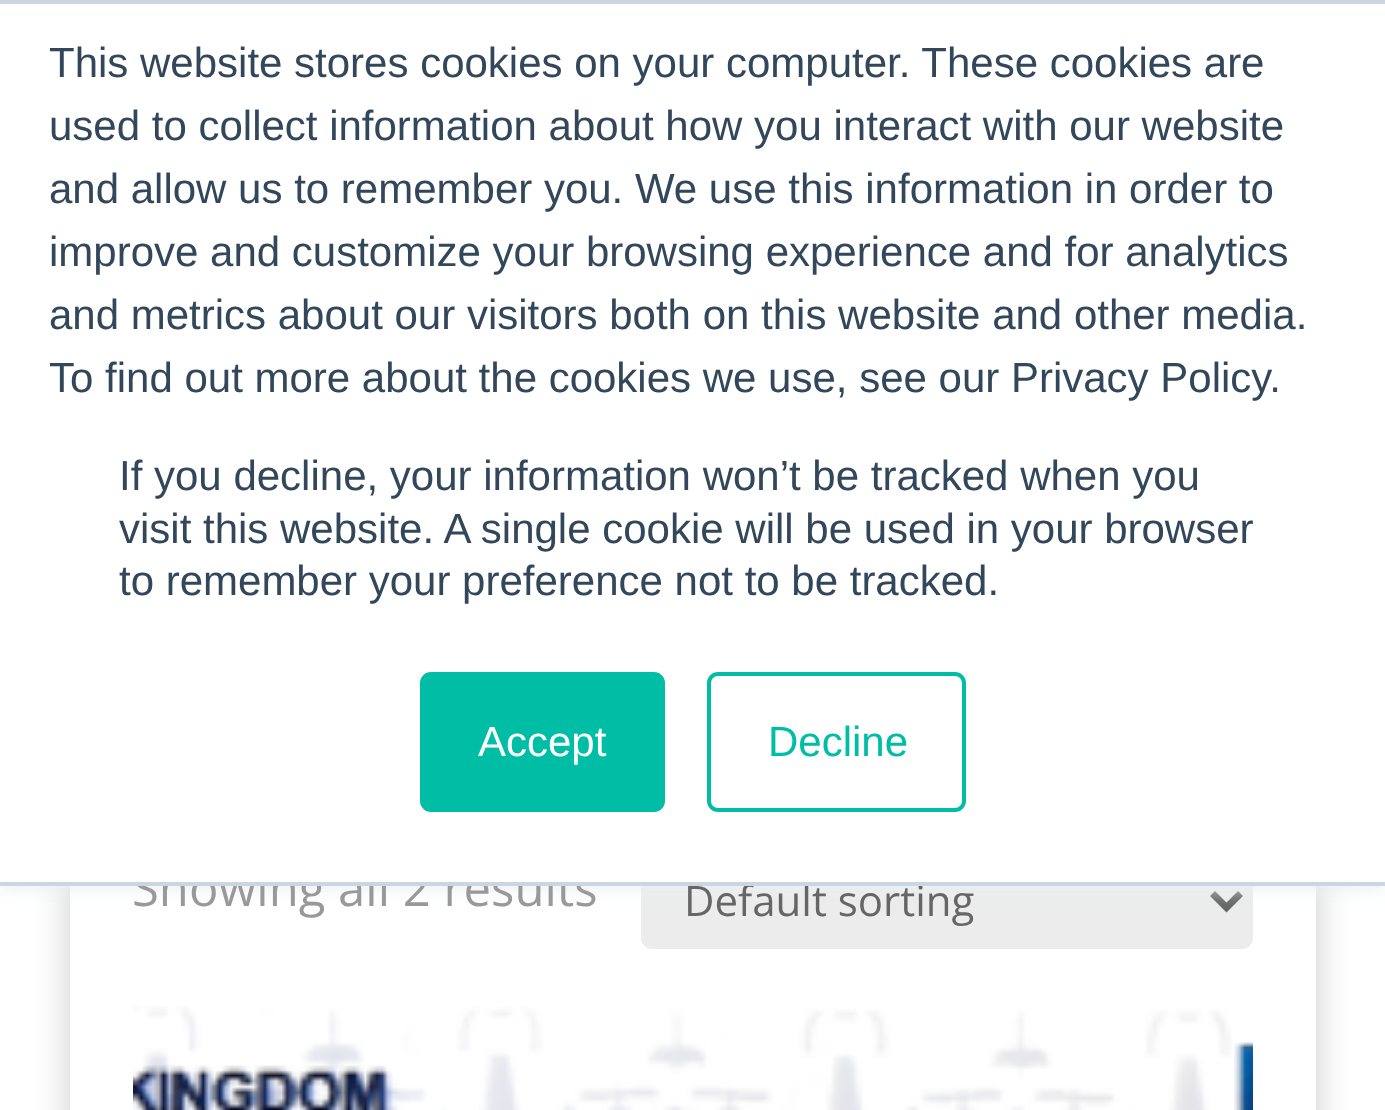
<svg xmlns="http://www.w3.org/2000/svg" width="1385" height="1110">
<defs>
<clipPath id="clip1"><path d="M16 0h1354v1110h-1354zm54 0h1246v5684h-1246z" clip-rule="evenodd"/></clipPath>
</defs>
<rect width="100%" height="100%" fill="#fff"/>
<g clip-path="url(#clip1)">
<rect x="70" width="1246" height="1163" fill="#00000033" filter="blur(17.5px)"/>
</g>
<rect x="641" y="854" width="612" height="95" rx="11" fill="#ececec"/>
<path d="M1212.5 893.5l14 14l14-14" fill="none" stroke="#666" stroke-width="7"/>
<rect y="4" width="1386" height="885" fill="#eaf0f6" filter="blur(9px)"/>
<text x="132" y="906" style="font-family:Open Sans;font-size:49px;fill:#999">Showing all 2 results</text>
<rect y="4" width="1385" height="878" fill="#fff"/>
<rect width="1385" height="4" fill="#cbd6e2"/>
<text x="684" y="916" style="font-family:Open Sans;font-size:42px;fill:#666">Default sorting</text>
<rect y="882" width="1385" height="4" fill="#cbd6e2"/>
<text x="49" y="77" style="font-family:Liberation Sans;font-size:42px;fill:#33475b">This website stores cookies on your computer. These cookies are</text>
<text x="49" y="140" style="font-family:Liberation Sans;font-size:42px;fill:#33475b">used to collect information about how you interact with our website</text>
<text x="49" y="203" style="font-family:Liberation Sans;font-size:42px;fill:#33475b">and allow us to remember you. We use this information in order to</text>
<text x="49" y="266" style="font-family:Liberation Sans;font-size:42px;fill:#33475b">improve and customize your browsing experience and for analytics</text>
<text x="49" y="329" style="font-family:Liberation Sans;font-size:42px;fill:#33475b">and metrics about our visitors both on this website and other media.</text>
<text x="49" y="392" style="font-family:Liberation Sans;font-size:42px;fill:#33475b">To find out more about the cookies we use, see our Privacy Policy.</text>
<text x="119" y="490" style="font-family:Liberation Sans;font-size:42px;fill:#33475b">If you decline, your information won’t be tracked when you</text>
<text x="119" y="543" style="font-family:Liberation Sans;font-size:42px;fill:#33475b">visit this website. A single cookie will be used in your browser</text>
<text x="119" y="595" style="font-family:Liberation Sans;font-size:42px;fill:#33475b">to remember your preference not to be tracked.</text>
<rect x="422" y="674" width="241" height="136" rx="9" fill="#00bda5" stroke="#00bda5" stroke-width="4"/>
<text x="478" y="756" style="font-family:Liberation Sans;font-size:42px;fill:#fff">Accept</text>
<rect x="709" y="674" width="255" height="136" rx="9" fill="none" stroke="#00bda5" stroke-width="4"/>
<text x="768" y="756" style="font-family:Liberation Sans;font-size:42px;fill:#00bda5">Decline</text>
<image x="133" y="1006" width="1120" height="104" href="media/1.png"/>
</svg>
